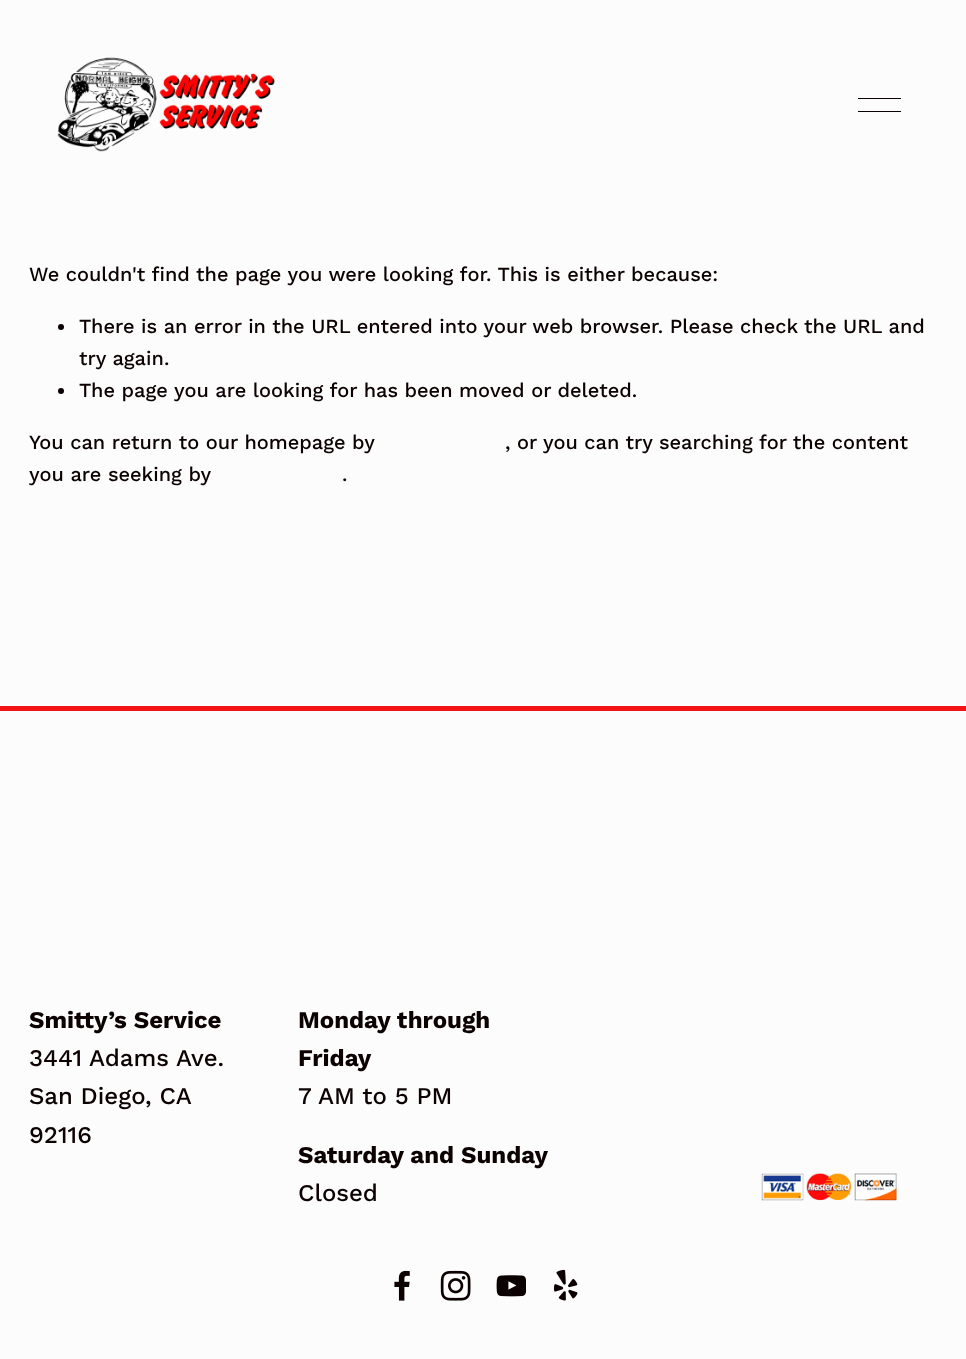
<svg xmlns="http://www.w3.org/2000/svg" width="966" height="1359">
<rect width="100%" height="100%" fill="#fcfcfc"/>
<image x="57" y="57" width="218" height="95" href="media/1.png"/>
<rect x="858" y="98" width="43" height="1" fill="#0b0101"/>
<rect x="858" y="111" width="43" height="1" fill="#0b0101"/>
<text x="29" y="281" style="font-family:Work Sans;font-size:20px;font-weight:500;fill:#0b0101">We couldn't find the page you were looking for. This is either because:</text>
<circle cx="61" cy="327" r="3" fill="#0b0101"/>
<text x="79" y="333" style="font-family:Work Sans;font-size:20px;font-weight:500;fill:#0b0101">There is an error in the URL entered into your web browser. Please check the URL and</text>
<text x="79" y="365" style="font-family:Work Sans;font-size:20px;font-weight:500;fill:#0b0101">try again.</text>
<circle cx="61" cy="391" r="3" fill="#0b0101"/>
<text x="79" y="397" style="font-family:Work Sans;font-size:20px;font-weight:500;fill:#0b0101">The page you are looking for has been moved or deleted.</text>
<text x="29" y="449" style="font-family:Work Sans;font-size:20px;font-weight:500;fill:#0b0101">You can return to our homepage by</text>
<text x="505" y="449" style="font-family:Work Sans;font-size:20px;font-weight:500;fill:#0b0101">, or you can try searching for the content</text>
<text x="29" y="481" style="font-family:Work Sans;font-size:20px;font-weight:500;fill:#0b0101">you are seeking by</text>
<text x="342" y="481" style="font-family:Work Sans;font-size:20px;font-weight:500;fill:#0b0101">.</text>
<rect y="706" width="966" height="5" fill="#f21316"/>
<text x="29" y="1028" style="font-family:Work Sans;font-size:24px;font-weight:bold;fill:#0b0101">Smitty’s Service</text>
<text x="29" y="1066" style="font-family:Work Sans;font-size:24px;font-weight:500;fill:#0b0101">3441 Adams Ave.</text>
<text x="29" y="1104" style="font-family:Work Sans;font-size:24px;font-weight:500;fill:#0b0101">San Diego, CA</text>
<text x="29" y="1143" style="font-family:Work Sans;font-size:24px;font-weight:500;fill:#0b0101">92116</text>
<text x="298" y="1028" style="font-family:Work Sans;font-size:24px;font-weight:bold;fill:#0b0101">Monday through</text>
<text x="298" y="1066" style="font-family:Work Sans;font-size:24px;font-weight:bold;fill:#0b0101">Friday</text>
<text x="298" y="1104" style="font-family:Work Sans;font-size:24px;font-weight:500;fill:#0b0101">7 AM to 5 PM</text>
<text x="298" y="1163" style="font-family:Work Sans;font-size:24px;font-weight:bold;fill:#0b0101">Saturday and Sunday</text>
<text x="298" y="1201" style="font-family:Work Sans;font-size:24px;font-weight:500;fill:#0b0101">Closed</text>
<image x="761" y="1173" width="136" height="28" href="media/2.png"/>
<image x="394" y="1270" width="16" height="31" href="media/3.png"/>
<image x="440" y="1270" width="31" height="31" href="media/4.png"/>
<image x="496" y="1275" width="30" height="22" href="media/5.png"/>
<image x="554" y="1269" width="24" height="32" href="media/6.png"/>
</svg>
